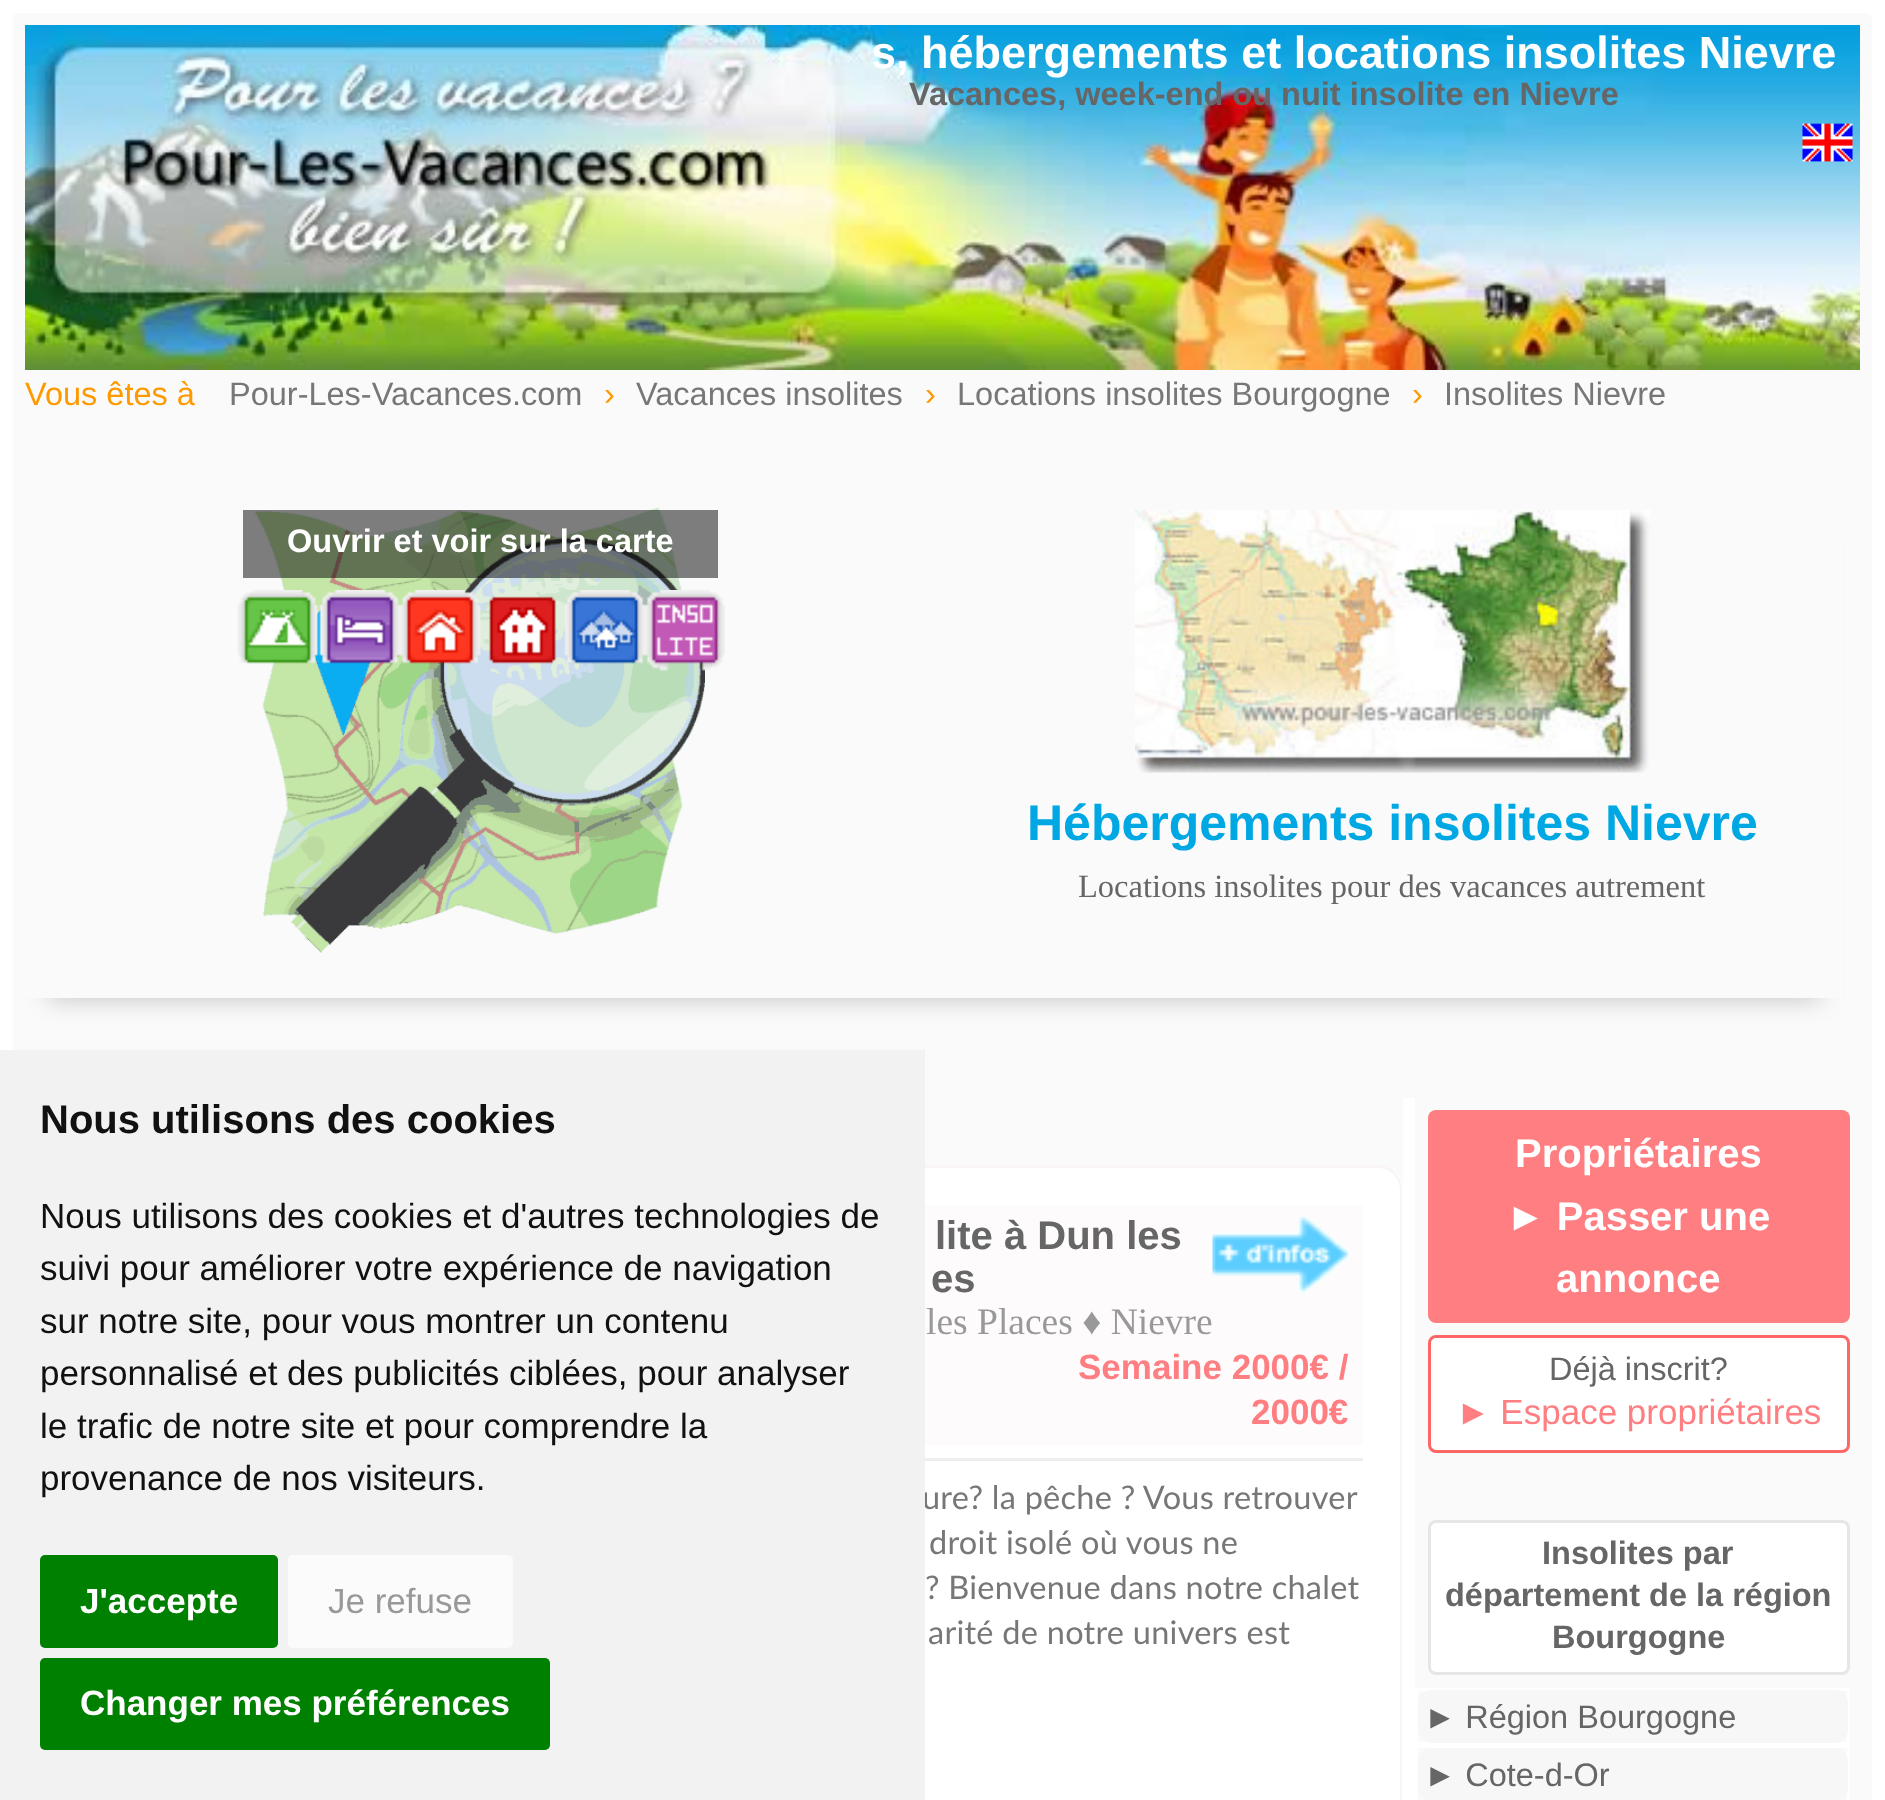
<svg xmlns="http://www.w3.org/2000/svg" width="1885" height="1800">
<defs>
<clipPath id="clip1"><path d="M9 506h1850v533h-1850zm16-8h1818v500h-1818z" clip-rule="evenodd"/></clipPath>
</defs>
<rect width="100%" height="100%" fill="#fff"/>
<rect x="6.5" y="6.5" width="1872" height="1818" rx="11.5" fill="#fafafa" stroke="#fff" stroke-width="13"/>
<image x="25" y="25" width="1835" height="345" href="media/1.png"/>
<text x="871" y="68" style="font-family:Liberation Sans;font-size:45px;font-weight:bold;fill:#fff">s, hébergements et locations insolites Nievre</text>
<text x="909" y="105" style="font-family:Liberation Sans;font-size:32.5px;font-weight:bold;fill:#666">Vacances, week-end ou nuit insolite en Nievre</text>
<image x="1802" y="123" width="51" height="39" href="media/2.png"/>
<text x="25" y="405" style="font-family:Liberation Sans;font-size:32.5px;fill:#f90">Vous êtes à</text>
<text x="229" y="405" style="font-family:Liberation Sans;font-size:32.5px;fill:#777">Pour-Les-Vacances.com</text>
<text x="604" y="405" style="font-family:Liberation Sans;font-size:32.5px;fill:#f90">›</text>
<text x="636" y="405" style="font-family:Liberation Sans;font-size:32.5px;fill:#777">Vacances insolites</text>
<text x="925" y="405" style="font-family:Liberation Sans;font-size:32.5px;fill:#f90">›</text>
<text x="957" y="405" style="font-family:Liberation Sans;font-size:32.5px;fill:#777">Locations insolites Bourgogne</text>
<text x="1412" y="405" style="font-family:Liberation Sans;font-size:32.5px;fill:#f90">›</text>
<text x="1444" y="405" style="font-family:Liberation Sans;font-size:32.5px;fill:#777">Insolites Nievre</text>
<g clip-path="url(#clip1)">
<rect x="48" y="545" width="1772" height="455" fill="#00000033" filter="blur(12.5px)"/>
</g>
<image x="255" y="507" width="450" height="446" href="media/3.png"/>
<rect x="243" y="510" width="475" height="68" fill="#00000080"/>
<text x="287" y="552" style="font-family:Liberation Sans;font-size:32.5px;font-weight:bold;fill:#fff">Ouvrir et voir sur la carte</text>
<image x="237" y="590" width="488" height="81" href="media/4.png"/>
<image x="1135" y="510" width="515" height="263" href="media/5.png"/>
<text x="1027" y="840" style="font-family:Liberation Sans;font-size:50px;font-weight:bold;fill:#00a8e3">Hébergements insolites Nievre</text>
<text x="1078" y="897" style="font-family:Liberation Serif;font-size:32.5px;fill:#666">Locations insolites pour des vacances autrement</text>
<rect x="25" y="1165" width="1378" height="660" rx="25" fill="#fff"/>
<path d="M50 1165c-14 0-25 11-25 25c0-12 11-22 25-22h1328c6 0 11 2 15 6l2-2c-4-4-10-7-17-7z" fill="#faf5f5"/>
<path d="M1394 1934c4-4 6-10 6-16v-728c0-6-3-12-7-16l2-2c4 5 7 11 7 18v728c0 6-3 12-7 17z" fill="#faf5f5"/>
<rect x="925" y="1205" width="438" height="240" fill="#fdfbfc"/>
<text x="935" y="1249" style="font-family:Liberation Sans;font-size:40px;font-weight:bold;fill:#666">lite à Dun les</text>
<text x="931" y="1292" style="font-family:Liberation Sans;font-size:40px;font-weight:bold;fill:#666">es</text>
<image x="1212" y="1217" width="138" height="76" href="media/6.png"/>
<text x="926" y="1334" style="font-family:Liberation Serif;font-size:37.5px;fill:#999">les Places ♦ Nievre</text>
<text x="1078" y="1379" style="font-family:Liberation Sans;font-size:35px;font-weight:bold;fill:#ff7e82">Semaine 2000€ /</text>
<text x="1251" y="1424" style="font-family:Liberation Sans;font-size:35px;font-weight:bold;fill:#ff7e82">2000€</text>
<rect x="925" y="1458" width="438" height="3" fill="#eee"/>
<text x="922" y="1509" style="font-family:Lato;font-size:32.5px;letter-spacing:0.25px;fill:#777">ure? la pêche ? Vous retrouver</text>
<text x="929" y="1554" style="font-family:Lato;font-size:32.5px;letter-spacing:0.25px;fill:#777">droit isolé où vous ne</text>
<text x="925" y="1599" style="font-family:Lato;font-size:32.5px;letter-spacing:0.25px;fill:#777">? Bienvenue dans notre chalet</text>
<text x="928" y="1644" style="font-family:Lato;font-size:32.5px;letter-spacing:0.25px;fill:#777">arité de notre univers est</text>
<rect x="1403" y="1098" width="12" height="702" fill="#fff"/>
<rect x="1428" y="1110" width="422" height="213" rx="8" fill="#ff7e82"/>
<text x="1515" y="1167" style="font-family:Liberation Sans;font-size:40px;font-weight:bold;fill:#fff">Propriétaires</text>
<text x="1506" y="1230" style="font-family:Liberation Sans;font-size:40px;font-weight:bold;fill:#fff">► Passer une</text>
<text x="1556" y="1292" style="font-family:Liberation Sans;font-size:40px;font-weight:bold;fill:#fff">annonce</text>
<rect x="1429.5" y="1336.5" width="419" height="115" rx="6.5" fill="#fff" stroke="#f66" stroke-width="3"/>
<text x="1549" y="1380" style="font-family:Liberation Sans;font-size:32.5px;fill:#666">Déjà inscrit?</text>
<text x="1456" y="1424" style="font-family:Liberation Sans;font-size:35px;fill:#ff7e82">► Espace propriétaires</text>
<rect x="1429.5" y="1521.5" width="419" height="152" rx="6.5" fill="#fff" stroke="#e6e6e6" stroke-width="3"/>
<text x="1542" y="1564" style="font-family:Liberation Sans;font-size:32.5px;font-weight:bold;fill:#666">Insolites par</text>
<text x="1445" y="1606" style="font-family:Liberation Sans;font-size:32.5px;font-weight:bold;fill:#666">département de la région</text>
<text x="1552" y="1648" style="font-family:Liberation Sans;font-size:32.5px;font-weight:bold;fill:#666">Bourgogne</text>
<rect x="1416.5" y="1689.5" width="432" height="54" fill="none" stroke="#fff" stroke-width="3"/>
<rect x="1418" y="1690" width="430" height="53" rx="13" fill="#f7f7f7"/>
<text x="1424" y="1728" style="font-family:Liberation Sans;font-size:32.5px;fill:#666">► Région Bourgogne</text>
<rect x="1416.5" y="1746.5" width="432" height="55" fill="none" stroke="#fff" stroke-width="3"/>
<rect x="1418" y="1748" width="430" height="52" rx="13" fill="#f7f7f7"/>
<text x="1424" y="1786" style="font-family:Liberation Sans;font-size:32.5px;fill:#666">► Cote-d-Or</text>
<rect y="1050" width="925" height="750" fill="#f2f2f2"/>
<text x="40" y="1133" style="font-family:Liberation Sans;font-size:40px;font-weight:bold;fill:#111">Nous utilisons des cookies</text>
<text x="40" y="1228" style="font-family:Liberation Sans;font-size:35px;fill:#111">Nous utilisons des cookies et d'autres technologies de</text>
<text x="40" y="1280" style="font-family:Liberation Sans;font-size:35px;fill:#111">suivi pour améliorer votre expérience de navigation</text>
<text x="40" y="1333" style="font-family:Liberation Sans;font-size:35px;fill:#111">sur notre site, pour vous montrer un contenu</text>
<text x="40" y="1385" style="font-family:Liberation Sans;font-size:35px;fill:#111">personnalisé et des publicités ciblées, pour analyser</text>
<text x="40" y="1438" style="font-family:Liberation Sans;font-size:35px;fill:#111">le trafic de notre site et pour comprendre la</text>
<text x="40" y="1490" style="font-family:Liberation Sans;font-size:35px;fill:#111">provenance de nos visiteurs.</text>
<rect x="40" y="1555" width="238" height="93" rx="5" fill="#008000"/>
<text x="80" y="1613" style="font-family:Liberation Sans;font-size:35px;font-weight:bold;fill:#fff">J'accepte</text>
<rect x="288" y="1555" width="225" height="93" rx="5" fill="#fbfbfb"/>
<text x="328" y="1613" style="font-family:Liberation Sans;font-size:35px;fill:#999">Je refuse</text>
<rect x="40" y="1658" width="510" height="92" rx="5" fill="#008000"/>
<text x="80" y="1715" style="font-family:Liberation Sans;font-size:35px;font-weight:bold;fill:#fff">Changer mes préférences</text>
</svg>
